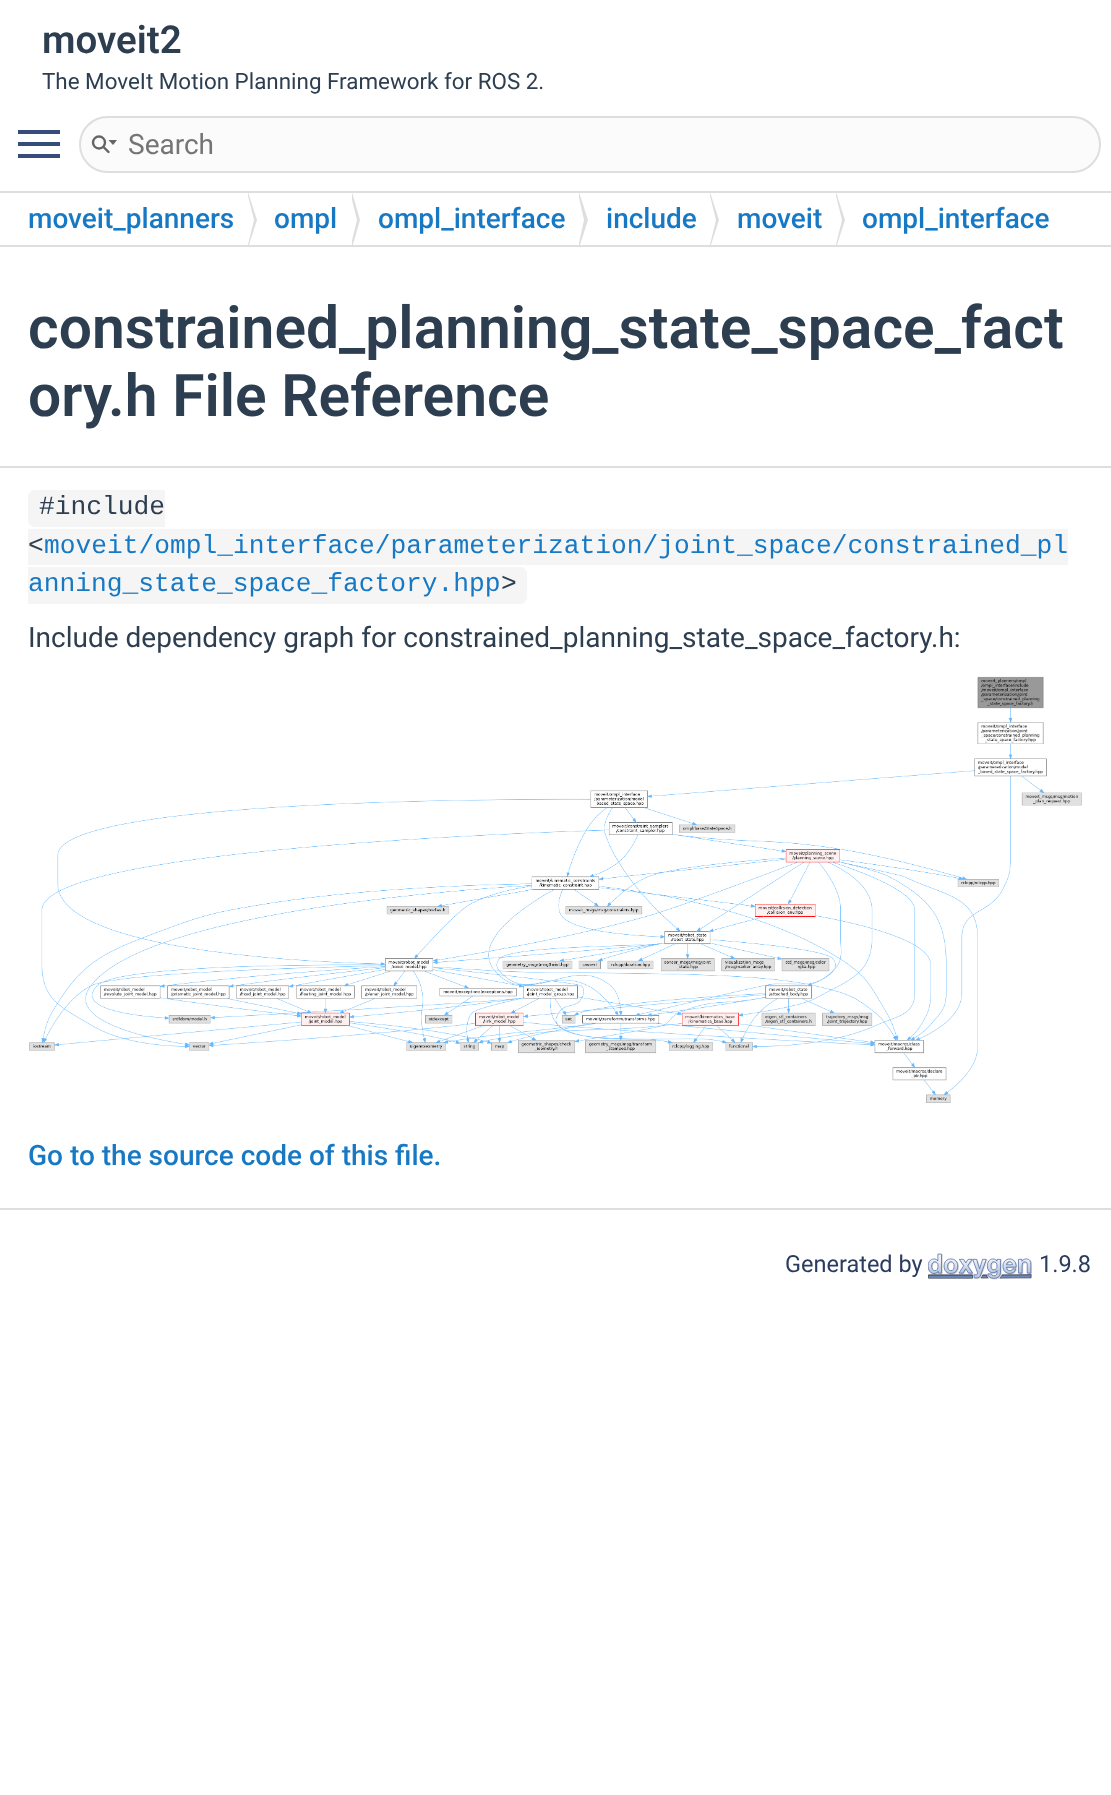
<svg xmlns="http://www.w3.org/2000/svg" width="1111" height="1795">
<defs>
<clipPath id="clip1"><rect y="193" width="1111" height="52"/></clipPath>
</defs>
<rect width="100%" height="100%" fill="#fff"/>
<text x="42" y="53" style="font-family:Roboto;font-size:38.5px;font-weight:600;fill:#2c3e50">moveit2</text>
<text x="42" y="89" style="font-family:Roboto;font-size:22.4px;fill:#2c3e50">The MoveIt Motion Planning Framework for ROS 2.</text>
<rect x="18" y="142" width="42" height="4" fill="#364d7c"/>
<rect x="18" y="130" width="42" height="4" fill="#364d7c"/>
<rect x="18" y="154" width="42" height="4" fill="#364d7c"/>
<rect x="80" y="117" width="1020" height="55" rx="27.5" fill="#fbfbfb" stroke="#dedede" stroke-width="2"/>
<circle cx="99" cy="142.5" r="6" fill="none" stroke="#656565" stroke-width="2.4"/>
<path d="M108.5 140l4.5 5l4-5z" fill="#656565"/>
<path d="M103.5 147l5 5" fill="none" stroke="#656565" stroke-width="2.4" stroke-linecap="round"/>
<text x="128" y="154" style="font-family:Roboto;font-size:28px;fill:#757575">Search</text>
<rect y="191" width="1111" height="2" fill="#dedede"/>
<rect y="245" width="1111" height="2" fill="#dedede"/>
<text x="28" y="228" style="font-family:Roboto;font-size:28px;font-weight:500;fill:#1779c4">moveit_planners</text>
<g clip-path="url(#clip1)">
<path d="M248 248v-56l9 28z" fill="#dedede"/>
<path d="M245 257v-73l9 36z" fill="#fff"/>
</g>
<text x="274" y="228" style="font-family:Roboto;font-size:28px;font-weight:500;fill:#1779c4">ompl</text>
<g clip-path="url(#clip1)">
<path d="M352 248v-56l8 28z" fill="#dedede"/>
<path d="M348 257v-73l9 36z" fill="#fff"/>
</g>
<text x="378" y="228" style="font-family:Roboto;font-size:28px;font-weight:500;fill:#1779c4">ompl_interface</text>
<g clip-path="url(#clip1)">
<path d="M579 248v-56l9 28z" fill="#dedede"/>
<path d="M576 257v-73l8 36z" fill="#fff"/>
</g>
<text x="606" y="228" style="font-family:Roboto;font-size:28px;font-weight:500;fill:#1779c4">include</text>
<g clip-path="url(#clip1)">
<path d="M710 248v-56l9 28z" fill="#dedede"/>
<path d="M707 257v-73l9 36z" fill="#fff"/>
</g>
<text x="737" y="228" style="font-family:Roboto;font-size:28px;font-weight:500;fill:#1779c4">moveit</text>
<g clip-path="url(#clip1)">
<path d="M836 248v-56l9 28z" fill="#dedede"/>
<path d="M833 257v-73l9 36z" fill="#fff"/>
</g>
<text x="862" y="228" style="font-family:Roboto;font-size:28px;font-weight:500;fill:#1779c4">ompl_interface</text>
<rect y="466" width="1111" height="2" fill="#dedede"/>
<text x="28" y="348" style="font-family:Roboto;font-size:58.75px;font-weight:600;fill:#2c3e50">constrained_planning_state_space_fact</text>
<text x="28" y="416" style="font-family:Roboto;font-size:58.75px;font-weight:600;fill:#2c3e50">ory.h File Reference</text>
<path d="M35 490h130v37h-130c-4 0-7-3-7-7v-23c0-4 3-7 7-7z" fill="#f5f5f5"/>
<text x="39" y="514" style="font-family:Liberation Mono;font-size:26.25px;fill:#2c3e50">#include</text>
<rect x="28" y="529" width="1040" height="36" fill="#f5f5f5"/>
<text x="28" y="553" style="font-family:Liberation Mono;font-size:26.25px;fill:#2c3e50">&lt;</text>
<text x="44" y="553" style="font-family:Liberation Mono;font-size:26.25px;fill:#1779c4">moveit/ompl_interface/parameterization/joint_space/constrained_pl</text>
<rect x="28" y="567" width="473" height="37" fill="#f5f5f5"/>
<text x="28" y="591" style="font-family:Liberation Mono;font-size:26.25px;fill:#1779c4">anning_state_space_factory.hpp</text>
<path d="M501 567h19c4 0 7 3 7 7v23c0 4-3 7-7 7h-19z" fill="#f5f5f5"/>
<text x="501" y="591" style="font-family:Liberation Mono;font-size:26.25px;fill:#2c3e50">&gt;</text>
<text x="28" y="647" style="font-family:Roboto;font-size:28px;fill:#2c3e50">Include dependency graph for constrained_planning_state_space_factory.h:</text>
<image x="29" y="676" width="1053" height="427" href="media/1.png"/>
<text x="28" y="1165" style="font-family:Roboto;font-size:28px;font-weight:500;fill:#1779c4">Go to the source code of this file.</text>
<rect y="1208" width="1111" height="2" fill="#dedede"/>
<text x="785" y="1272" style="font-family:Roboto;font-size:23.5px;fill:#2a3d61">Generated by</text>
<image x="928" y="1253" width="104" height="27" href="media/2.png"/>
<text x="1039" y="1272" style="font-family:Roboto;font-size:23.5px;fill:#2a3d61">1.9.8</text>
</svg>
